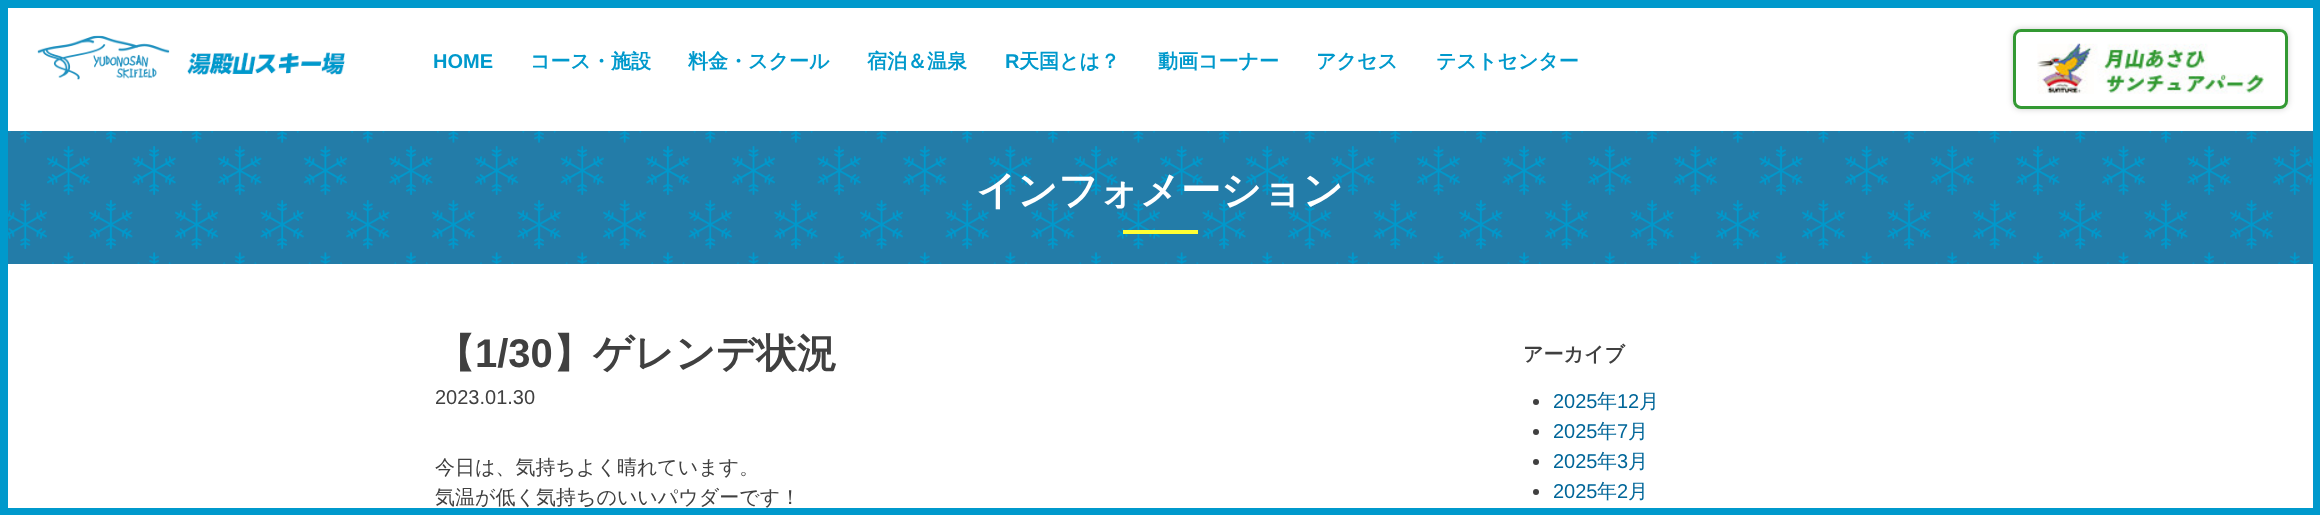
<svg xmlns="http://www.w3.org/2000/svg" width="2320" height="515">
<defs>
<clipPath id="clip1"><path d="M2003 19h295v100h-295zm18 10h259c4.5 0 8 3.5 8 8v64c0 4.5-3.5 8-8 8h-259c-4.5 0-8-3.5-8-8v-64c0-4.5 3.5-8 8-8z" clip-rule="evenodd"/></clipPath>
</defs>
<rect width="100%" height="100%" fill="#fff"/>
<rect width="8" height="515" fill="#09c"/>
<rect x="2313" width="7" height="515" fill="#09c"/>
<rect width="2320" height="8" fill="#09c"/>
<image x="37" y="35" width="308" height="45" href="media/1.png"/>
<text x="433" y="68" style="font-family:Liberation Sans;font-size:20px;font-weight:bold;fill:#09c">HOME</text>
<text x="530" y="68" style="font-family:WenQuanYi Zen Hei;font-size:20px;font-weight:bold;fill:#09c">コース・施設</text>
<text x="688" y="68" style="font-family:WenQuanYi Zen Hei;font-size:20px;font-weight:bold;fill:#09c">料金・スクール</text>
<text x="867" y="68" style="font-family:WenQuanYi Zen Hei;font-size:20px;font-weight:bold;fill:#09c">宿泊＆温泉</text>
<text x="1005" y="68" style="font-family:Liberation Sans;font-size:20px;font-weight:bold;fill:#09c">R</text>
<text x="1019" y="68" style="font-family:WenQuanYi Zen Hei;font-size:20px;font-weight:bold;fill:#09c">天国とは？</text>
<text x="1158" y="68" style="font-family:WenQuanYi Zen Hei;font-size:20px;font-weight:bold;fill:#09c">動画コーナー</text>
<text x="1316" y="68" style="font-family:WenQuanYi Zen Hei;font-size:20px;font-weight:bold;fill:#09c">アクセス</text>
<text x="1436" y="68" style="font-family:WenQuanYi Zen Hei;font-size:20px;font-weight:bold;fill:#09c">テストセンター</text>
<g clip-path="url(#clip1)">
<rect x="2013" y="29" width="275" height="80" rx="8" fill="#00000033" filter="blur(3px)"/>
</g>
<rect x="2014.5" y="30.5" width="272" height="77" rx="6.5" fill="none" stroke="#393" stroke-width="3"/>
<image x="2037" y="43" width="227" height="51" href="media/2.png"/>
<rect x="8" y="131" width="2305" height="133" fill="#237ca8"/>
<image x="8" y="131" width="2305" height="133" href="media/3.png"/>
<text x="976" y="204" style="font-family:WenQuanYi Zen Hei;font-size:40px;font-weight:bold;fill:#fff">インフォメーション</text>
<rect x="1123" y="230" width="75" height="4" fill="#ff3"/>
<text x="435" y="367" style="font-family:WenQuanYi Zen Hei;font-size:40px;font-weight:bold;fill:#404040">【</text>
<text x="475" y="367" style="font-family:Liberation Sans;font-size:40px;font-weight:bold;fill:#404040">1/30</text>
<text x="553" y="367" style="font-family:WenQuanYi Zen Hei;font-size:40px;font-weight:bold;fill:#404040">】ゲレンデ状況</text>
<text x="435" y="404" style="font-family:Liberation Sans;font-size:20px;fill:#404040">2023.01.30</text>
<text x="435" y="474" style="font-family:WenQuanYi Zen Hei;font-size:20px;font-weight:500;fill:#404040">今日は、気持ちよく晴れています。</text>
<text x="435" y="504" style="font-family:WenQuanYi Zen Hei;font-size:20px;font-weight:500;fill:#404040">気温が低く気持ちのいいパウダーです！</text>
<text x="1523" y="361" style="font-family:WenQuanYi Zen Hei;font-size:20px;font-weight:bold;fill:#404040">アーカイブ</text>
<circle cx="1536" cy="402" r="3" fill="#404040"/>
<text x="1553" y="408" style="font-family:Liberation Sans;font-size:20px;fill:#069">2025</text>
<text x="1597" y="408" style="font-family:WenQuanYi Zen Hei;font-size:20px;font-weight:500;fill:#069">年</text>
<text x="1617" y="408" style="font-family:Liberation Sans;font-size:20px;fill:#069">12</text>
<text x="1639" y="408" style="font-family:WenQuanYi Zen Hei;font-size:20px;font-weight:500;fill:#069">月</text>
<circle cx="1536" cy="432" r="3" fill="#404040"/>
<text x="1553" y="438" style="font-family:Liberation Sans;font-size:20px;fill:#069">2025</text>
<text x="1597" y="438" style="font-family:WenQuanYi Zen Hei;font-size:20px;font-weight:500;fill:#069">年</text>
<text x="1617" y="438" style="font-family:Liberation Sans;font-size:20px;fill:#069">7</text>
<text x="1628" y="438" style="font-family:WenQuanYi Zen Hei;font-size:20px;font-weight:500;fill:#069">月</text>
<circle cx="1536" cy="462" r="3" fill="#404040"/>
<text x="1553" y="468" style="font-family:Liberation Sans;font-size:20px;fill:#069">2025</text>
<text x="1597" y="468" style="font-family:WenQuanYi Zen Hei;font-size:20px;font-weight:500;fill:#069">年</text>
<text x="1617" y="468" style="font-family:Liberation Sans;font-size:20px;fill:#069">3</text>
<text x="1628" y="468" style="font-family:WenQuanYi Zen Hei;font-size:20px;font-weight:500;fill:#069">月</text>
<circle cx="1536" cy="492" r="3" fill="#404040"/>
<text x="1553" y="498" style="font-family:Liberation Sans;font-size:20px;fill:#069">2025</text>
<text x="1597" y="498" style="font-family:WenQuanYi Zen Hei;font-size:20px;font-weight:500;fill:#069">年</text>
<text x="1617" y="498" style="font-family:Liberation Sans;font-size:20px;fill:#069">2</text>
<text x="1628" y="498" style="font-family:WenQuanYi Zen Hei;font-size:20px;font-weight:500;fill:#069">月</text>
<rect y="508" width="2320" height="7" fill="#09c"/>
</svg>
